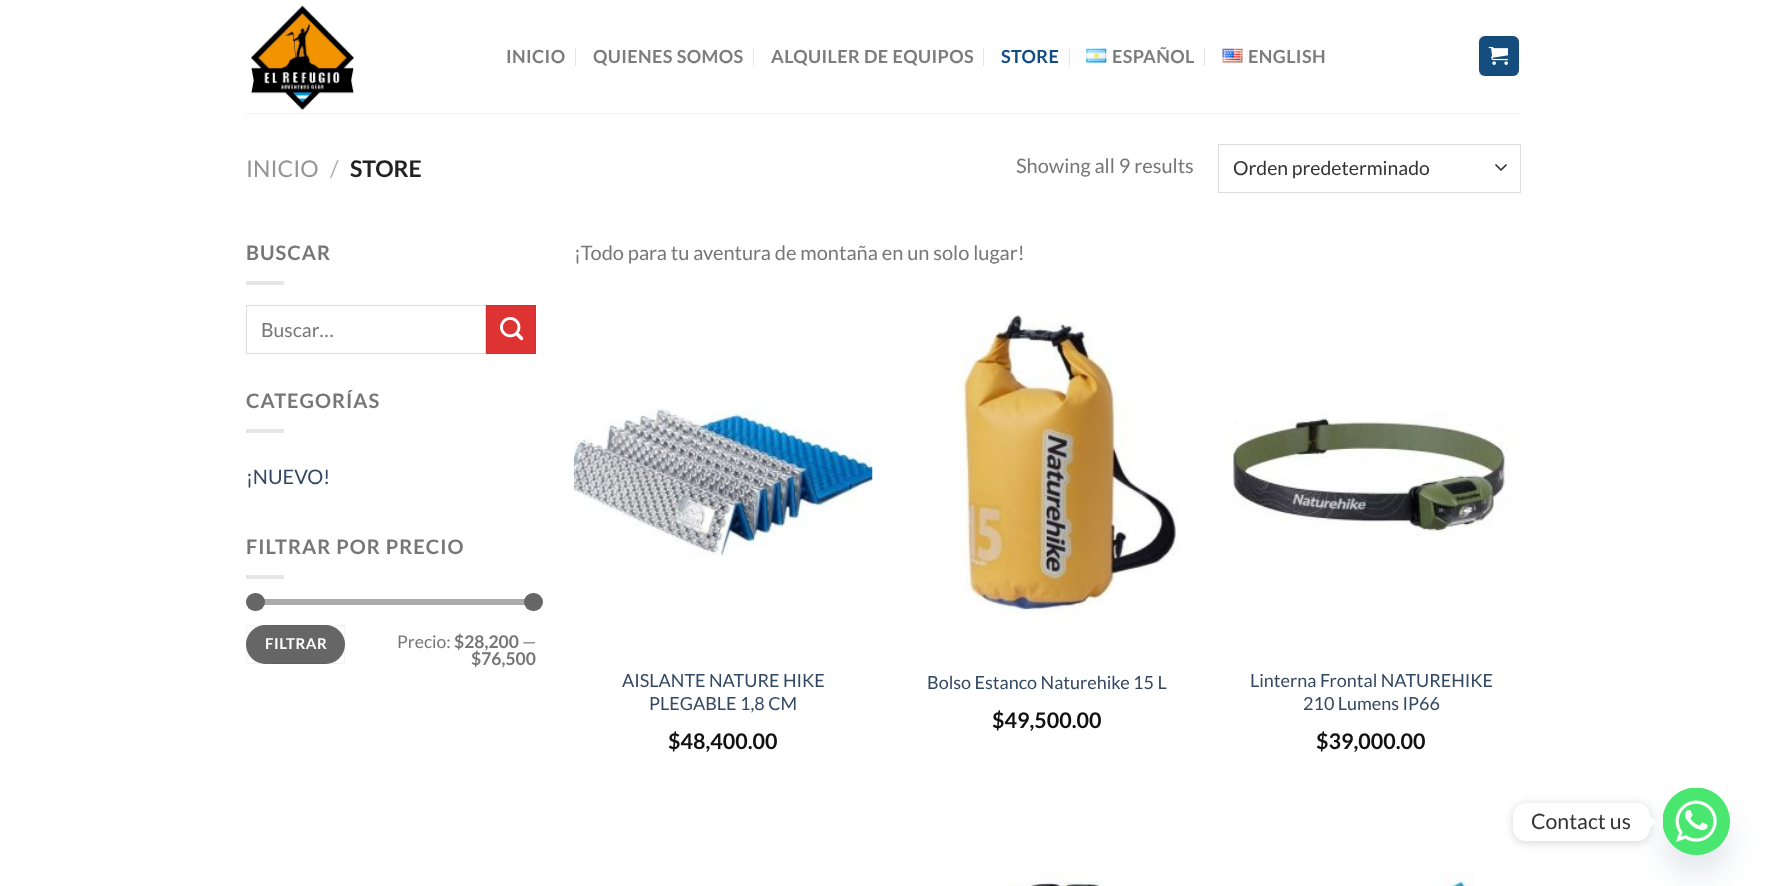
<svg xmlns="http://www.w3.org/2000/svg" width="1766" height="886">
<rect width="100%" height="100%" fill="#fff"/>
<image x="251" y="5" width="103" height="105" href="media/1.png"/>
<text x="506" y="63" style="font-family:Lato;font-size:18px;font-weight:bold;letter-spacing:0.4px;fill:#7d7d7d">INICIO</text>
<rect x="575" y="48" width="1" height="18" fill="#e6e6e6"/>
<text x="593" y="63" style="font-family:Lato;font-size:18px;font-weight:bold;letter-spacing:0.4px;fill:#7d7d7d">QUIENES SOMOS</text>
<rect x="753" y="48" width="1" height="18" fill="#e6e6e6"/>
<text x="771" y="63" style="font-family:Lato;font-size:18px;font-weight:bold;letter-spacing:0.4px;fill:#7d7d7d">ALQUILER DE EQUIPOS</text>
<rect x="983" y="48" width="1" height="18" fill="#e6e6e6"/>
<text x="1001" y="63" style="font-family:Lato;font-size:18px;font-weight:bold;letter-spacing:0.4px;fill:#114d82">STORE</text>
<rect x="1069" y="48" width="1" height="18" fill="#e6e6e6"/>
<image x="1086" y="48" width="21" height="15" href="media/2.png"/>
<text x="1112" y="63" style="font-family:Lato;font-size:18px;font-weight:bold;letter-spacing:0.4px;fill:#7d7d7d">ESPAÑOL</text>
<rect x="1204" y="48" width="1" height="18" fill="#e6e6e6"/>
<image x="1222" y="48" width="21" height="15" href="media/3.png"/>
<text x="1248" y="63" style="font-family:Lato;font-size:18px;font-weight:bold;letter-spacing:0.4px;fill:#7d7d7d">ENGLISH</text>
<rect x="1479" y="36" width="40" height="40" rx="6" fill="#154d7e"/>
<rect x="1479.5" y="36.5" width="39" height="39" fill="none" stroke="#0000000d"/>
<image x="1488" y="46" width="20" height="19" href="media/4.png"/>
<rect x="246" y="113" width="1275" height="1" fill="#f1f1f1"/>
<text x="246" y="177" style="font-family:Lato;font-size:23px;fill:#949494">INICIO</text>
<text x="330" y="177" style="font-family:Lato;font-size:23px;fill:#b2b2b2">/</text>
<text x="350" y="177" style="font-family:Lato;font-size:23px;font-weight:bold;fill:#222">STORE</text>
<text x="1016" y="173" style="font-family:Lato;font-size:20px;fill:#777">Showing all 9 results</text>
<path d="M1496 165l5 5l5-5" fill="none" stroke="#333" stroke-width="1.7" stroke-linecap="round" stroke-linejoin="round"/>
<rect x="1218.5" y="144.5" width="302" height="48" fill="none" stroke="#ddd"/>
<text x="1233" y="175" style="font-family:Lato;font-size:19.4px;fill:#333">Orden predeterminado</text>
<text x="246" y="260" style="font-family:Lato;font-size:20px;font-weight:bold;letter-spacing:1px;fill:#777">BUSCAR</text>
<rect x="246" y="281" width="38" height="4" fill="#e6e6e6"/>
<rect x="246.5" y="305.5" width="239" height="48" fill="none" stroke="#ddd"/>
<text x="261" y="337" style="font-family:Lato;font-size:19.4px;fill:#777">Buscar…</text>
<rect x="486.5" y="305.5" width="49" height="48" fill="#d33" stroke="#d23030"/>
<image x="500" y="316" width="24" height="25" href="media/5.png"/>
<text x="246" y="408" style="font-family:Lato;font-size:20px;font-weight:bold;letter-spacing:1px;fill:#777">CATEGORÍAS</text>
<rect x="246" y="429" width="38" height="4" fill="#e6e6e6"/>
<text x="246" y="484" style="font-family:Lato;font-size:20px;fill:#334862">¡NUEVO!</text>
<text x="246" y="554" style="font-family:Lato;font-size:20px;font-weight:bold;letter-spacing:1px;fill:#777">FILTRAR POR PRECIO</text>
<rect x="246" y="575" width="38" height="4" fill="#e6e6e6"/>
<rect x="246" y="599" width="290" height="6" rx="3" fill="#f1f1f1"/>
<rect x="246" y="599" width="290" height="6" rx="3" fill="#66666680"/>
<rect x="246" y="593" width="19" height="18" rx="9" fill="#666"/>
<rect x="524" y="593" width="19" height="18" rx="9" fill="#666"/>
<rect x="246" y="625" width="99" height="39" rx="19.5" fill="#666"/>
<rect x="246.5" y="625.5" width="98" height="38" fill="none" stroke="#0000000d"/>
<text x="265" y="649" style="font-family:Lato;font-size:15px;font-weight:bold;letter-spacing:0.5px;fill:#fff">FILTRAR</text>
<text x="397" y="648" style="font-family:Lato;font-size:17.5px;fill:#777">Precio:</text>
<text x="454" y="648" style="font-family:Lato;font-size:17.5px;font-weight:bold;fill:#777">$28,200</text>
<text x="522" y="648" style="font-family:Lato;font-size:17.5px;fill:#777">—</text>
<text x="471" y="665" style="font-family:Lato;font-size:17.5px;font-weight:bold;fill:#777">$76,500</text>
<text x="574" y="260" style="font-family:Lato;font-size:20px;fill:#777">¡Todo para tu aventura de montaña en un solo lugar!</text>
<image x="573" y="408" width="300" height="148" href="media/6.png"/>
<text x="622" y="687" style="font-family:Lato;font-size:18px;fill:#334862">AISLANTE NATURE HIKE</text>
<text x="649" y="710" style="font-family:Lato;font-size:18px;fill:#334862">PLEGABLE 1,8 CM</text>
<text x="668" y="749" style="font-family:Lato;font-size:21.5px;font-weight:bold;fill:#111">$48,400.00</text>
<image x="956" y="313" width="223" height="310" href="media/7.png"/>
<text x="927" y="689" style="font-family:Lato;font-size:18px;fill:#334862">Bolso Estanco Naturehike 15 L</text>
<text x="992" y="728" style="font-family:Lato;font-size:21.5px;font-weight:bold;fill:#111">$49,500.00</text>
<image x="1226" y="411" width="285" height="125" href="media/8.png"/>
<text x="1250" y="687" style="font-family:Lato;font-size:18px;fill:#334862">Linterna Frontal NATUREHIKE</text>
<text x="1303" y="710" style="font-family:Lato;font-size:18px;fill:#334862">210 Lumens IP66</text>
<text x="1316" y="749" style="font-family:Lato;font-size:21.5px;font-weight:bold;fill:#111">$39,000.00</text>
<image x="1007" y="872" width="99" height="14" href="media/9.png"/>
<image x="1436" y="871" width="38" height="15" href="media/10.png"/>
<rect x="1663" y="808" width="67" height="67" rx="33.5" fill="#49687e29" filter="blur(15px)"/>
<circle cx="1696.5" cy="821.5" r="33.5" fill="#49e670"/>
<image x="1663" y="788" width="67" height="67" href="media/11.png"/>
<rect x="1513" y="804" width="137" height="39" rx="13" fill="#00000026" filter="blur(5px)"/>
<rect x="1513" y="803" width="137" height="38" rx="13" fill="#fff"/>
<text x="1531" y="829" style="font-family:Lato;font-size:21.25px;fill:#333">Contact us</text>
<path d="M1650 828v-12.5l6 6.5z" fill="#fff"/>
</svg>
